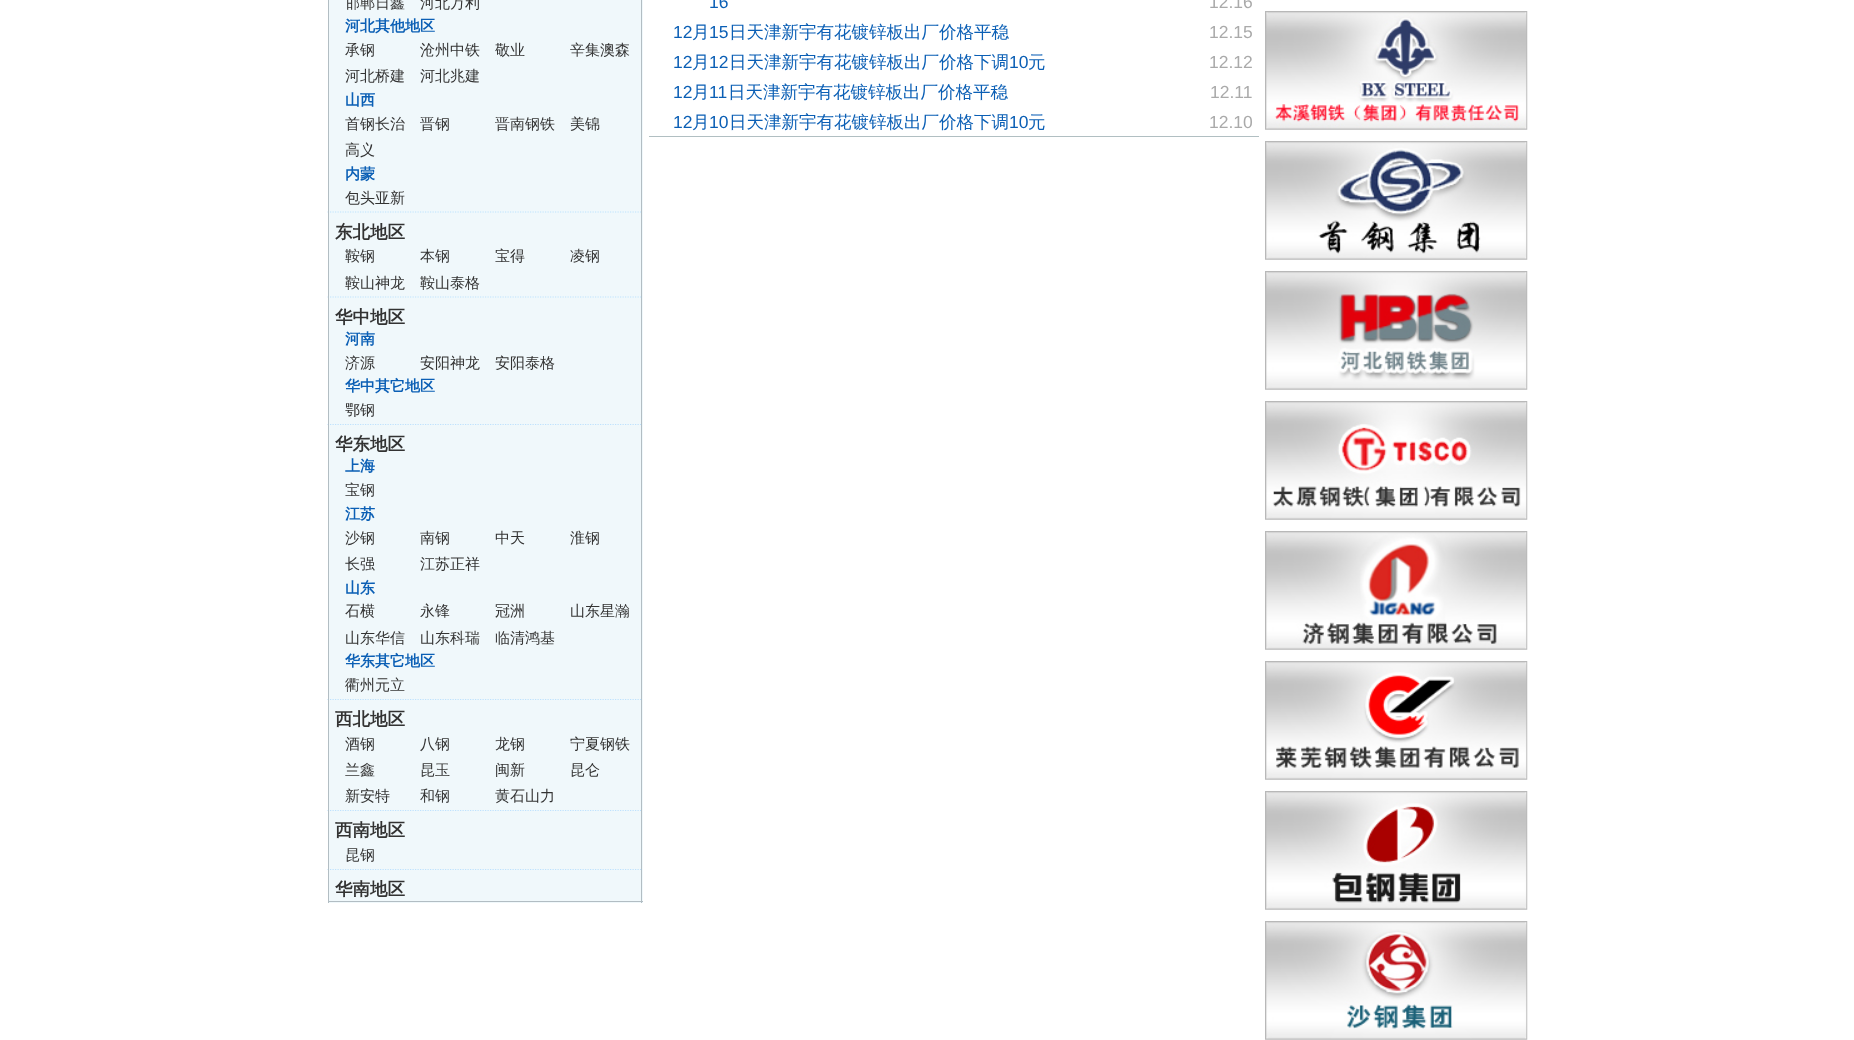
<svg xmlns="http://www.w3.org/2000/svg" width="1854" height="1040">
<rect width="100%" height="100%" fill="#fff"/>
<rect x="329" width="314" height="903" fill="#f0f8fb"/>
<rect x="641" width="1" height="211" fill="#b2bdc3"/>
<rect x="328" width="1" height="211" fill="#b2bdc3"/>
<text x="345" y="8" style="font-family:WenQuanYi Zen Hei;font-size:15px;font-weight:500;fill:#333">邯郸日鑫</text>
<text x="420" y="8" style="font-family:WenQuanYi Zen Hei;font-size:15px;font-weight:500;fill:#333">河北万利</text>
<text x="345" y="31" style="font-family:WenQuanYi Zen Hei;font-size:15px;font-weight:bold;fill:#0b5fb5">河北其他地区</text>
<text x="345" y="55" style="font-family:WenQuanYi Zen Hei;font-size:15px;font-weight:500;fill:#333">承钢</text>
<text x="420" y="55" style="font-family:WenQuanYi Zen Hei;font-size:15px;font-weight:500;fill:#333">沧州中铁</text>
<text x="495" y="55" style="font-family:WenQuanYi Zen Hei;font-size:15px;font-weight:500;fill:#333">敬业</text>
<text x="570" y="55" style="font-family:WenQuanYi Zen Hei;font-size:15px;font-weight:500;fill:#333">辛集澳森</text>
<text x="345" y="81" style="font-family:WenQuanYi Zen Hei;font-size:15px;font-weight:500;fill:#333">河北桥建</text>
<text x="420" y="81" style="font-family:WenQuanYi Zen Hei;font-size:15px;font-weight:500;fill:#333">河北兆建</text>
<text x="345" y="105" style="font-family:WenQuanYi Zen Hei;font-size:15px;font-weight:bold;fill:#0b5fb5">山西</text>
<text x="345" y="129" style="font-family:WenQuanYi Zen Hei;font-size:15px;font-weight:500;fill:#333">首钢长治</text>
<text x="420" y="129" style="font-family:WenQuanYi Zen Hei;font-size:15px;font-weight:500;fill:#333">晋钢</text>
<text x="495" y="129" style="font-family:WenQuanYi Zen Hei;font-size:15px;font-weight:500;fill:#333">晋南钢铁</text>
<text x="570" y="129" style="font-family:WenQuanYi Zen Hei;font-size:15px;font-weight:500;fill:#333">美锦</text>
<text x="345" y="155" style="font-family:WenQuanYi Zen Hei;font-size:15px;font-weight:500;fill:#333">高义</text>
<text x="345" y="179" style="font-family:WenQuanYi Zen Hei;font-size:15px;font-weight:bold;fill:#0b5fb5">内蒙</text>
<text x="345" y="203" style="font-family:WenQuanYi Zen Hei;font-size:15px;font-weight:500;fill:#333">包头亚新</text>
<path d="M327.5 212h315" fill="none" stroke="#bee1fd" stroke-width="1.2" stroke-dasharray="1.25 1.25"/>
<rect x="641" y="211" width="1" height="85" fill="#b2bdc3"/>
<rect x="328" y="211" width="1" height="85" fill="#b2bdc3"/>
<text x="335" y="238" style="font-family:WenQuanYi Zen Hei;font-size:17.5px;font-weight:bold;fill:#333">东北地区</text>
<text x="345" y="261" style="font-family:WenQuanYi Zen Hei;font-size:15px;font-weight:500;fill:#333">鞍钢</text>
<text x="420" y="261" style="font-family:WenQuanYi Zen Hei;font-size:15px;font-weight:500;fill:#333">本钢</text>
<text x="495" y="261" style="font-family:WenQuanYi Zen Hei;font-size:15px;font-weight:500;fill:#333">宝得</text>
<text x="570" y="261" style="font-family:WenQuanYi Zen Hei;font-size:15px;font-weight:500;fill:#333">凌钢</text>
<text x="345" y="288" style="font-family:WenQuanYi Zen Hei;font-size:15px;font-weight:500;fill:#333">鞍山神龙</text>
<text x="420" y="288" style="font-family:WenQuanYi Zen Hei;font-size:15px;font-weight:500;fill:#333">鞍山泰格</text>
<path d="M327.5 297h315" fill="none" stroke="#bee1fd" stroke-width="1.2" stroke-dasharray="1.25 1.25"/>
<rect x="641" y="296" width="1" height="128" fill="#b2bdc3"/>
<rect x="328" y="296" width="1" height="128" fill="#b2bdc3"/>
<text x="335" y="323" style="font-family:WenQuanYi Zen Hei;font-size:17.5px;font-weight:bold;fill:#333">华中地区</text>
<text x="345" y="344" style="font-family:WenQuanYi Zen Hei;font-size:15px;font-weight:bold;fill:#0b5fb5">河南</text>
<text x="345" y="368" style="font-family:WenQuanYi Zen Hei;font-size:15px;font-weight:500;fill:#333">济源</text>
<text x="420" y="368" style="font-family:WenQuanYi Zen Hei;font-size:15px;font-weight:500;fill:#333">安阳神龙</text>
<text x="495" y="368" style="font-family:WenQuanYi Zen Hei;font-size:15px;font-weight:500;fill:#333">安阳泰格</text>
<text x="345" y="391" style="font-family:WenQuanYi Zen Hei;font-size:15px;font-weight:bold;fill:#0b5fb5">华中其它地区</text>
<text x="345" y="415" style="font-family:WenQuanYi Zen Hei;font-size:15px;font-weight:500;fill:#333">鄂钢</text>
<path d="M327.5 424.5h315" fill="none" stroke="#bee1fd" stroke-width="1.2" stroke-dasharray="1.25 1.25"/>
<rect x="641" y="424" width="1" height="275" fill="#b2bdc3"/>
<rect x="328" y="424" width="1" height="275" fill="#b2bdc3"/>
<text x="335" y="450" style="font-family:WenQuanYi Zen Hei;font-size:17.5px;font-weight:bold;fill:#333">华东地区</text>
<text x="345" y="471" style="font-family:WenQuanYi Zen Hei;font-size:15px;font-weight:bold;fill:#0b5fb5">上海</text>
<text x="345" y="495" style="font-family:WenQuanYi Zen Hei;font-size:15px;font-weight:500;fill:#333">宝钢</text>
<text x="345" y="519" style="font-family:WenQuanYi Zen Hei;font-size:15px;font-weight:bold;fill:#0b5fb5">江苏</text>
<text x="345" y="543" style="font-family:WenQuanYi Zen Hei;font-size:15px;font-weight:500;fill:#333">沙钢</text>
<text x="420" y="543" style="font-family:WenQuanYi Zen Hei;font-size:15px;font-weight:500;fill:#333">南钢</text>
<text x="495" y="543" style="font-family:WenQuanYi Zen Hei;font-size:15px;font-weight:500;fill:#333">中天</text>
<text x="570" y="543" style="font-family:WenQuanYi Zen Hei;font-size:15px;font-weight:500;fill:#333">淮钢</text>
<text x="345" y="569" style="font-family:WenQuanYi Zen Hei;font-size:15px;font-weight:500;fill:#333">长强</text>
<text x="420" y="569" style="font-family:WenQuanYi Zen Hei;font-size:15px;font-weight:500;fill:#333">江苏正祥</text>
<text x="345" y="593" style="font-family:WenQuanYi Zen Hei;font-size:15px;font-weight:bold;fill:#0b5fb5">山东</text>
<text x="345" y="616" style="font-family:WenQuanYi Zen Hei;font-size:15px;font-weight:500;fill:#333">石横</text>
<text x="420" y="616" style="font-family:WenQuanYi Zen Hei;font-size:15px;font-weight:500;fill:#333">永锋</text>
<text x="495" y="616" style="font-family:WenQuanYi Zen Hei;font-size:15px;font-weight:500;fill:#333">冠洲</text>
<text x="570" y="616" style="font-family:WenQuanYi Zen Hei;font-size:15px;font-weight:500;fill:#333">山东星瀚</text>
<text x="345" y="643" style="font-family:WenQuanYi Zen Hei;font-size:15px;font-weight:500;fill:#333">山东华信</text>
<text x="420" y="643" style="font-family:WenQuanYi Zen Hei;font-size:15px;font-weight:500;fill:#333">山东科瑞</text>
<text x="495" y="643" style="font-family:WenQuanYi Zen Hei;font-size:15px;font-weight:500;fill:#333">临清鸿基</text>
<text x="345" y="666" style="font-family:WenQuanYi Zen Hei;font-size:15px;font-weight:bold;fill:#0b5fb5">华东其它地区</text>
<text x="345" y="690" style="font-family:WenQuanYi Zen Hei;font-size:15px;font-weight:500;fill:#333">衢州元立</text>
<path d="M327.5 699.5h315" fill="none" stroke="#bee1fd" stroke-width="1.2" stroke-dasharray="1.25 1.25"/>
<rect x="641" y="699" width="1" height="111" fill="#b2bdc3"/>
<rect x="328" y="699" width="1" height="111" fill="#b2bdc3"/>
<text x="335" y="725" style="font-family:WenQuanYi Zen Hei;font-size:17.5px;font-weight:bold;fill:#333">西北地区</text>
<text x="345" y="749" style="font-family:WenQuanYi Zen Hei;font-size:15px;font-weight:500;fill:#333">酒钢</text>
<text x="420" y="749" style="font-family:WenQuanYi Zen Hei;font-size:15px;font-weight:500;fill:#333">八钢</text>
<text x="495" y="749" style="font-family:WenQuanYi Zen Hei;font-size:15px;font-weight:500;fill:#333">龙钢</text>
<text x="570" y="749" style="font-family:WenQuanYi Zen Hei;font-size:15px;font-weight:500;fill:#333">宁夏钢铁</text>
<text x="345" y="775" style="font-family:WenQuanYi Zen Hei;font-size:15px;font-weight:500;fill:#333">兰鑫</text>
<text x="420" y="775" style="font-family:WenQuanYi Zen Hei;font-size:15px;font-weight:500;fill:#333">昆玉</text>
<text x="495" y="775" style="font-family:WenQuanYi Zen Hei;font-size:15px;font-weight:500;fill:#333">闽新</text>
<text x="570" y="775" style="font-family:WenQuanYi Zen Hei;font-size:15px;font-weight:500;fill:#333">昆仑</text>
<text x="345" y="801" style="font-family:WenQuanYi Zen Hei;font-size:15px;font-weight:500;fill:#333">新安特</text>
<text x="420" y="801" style="font-family:WenQuanYi Zen Hei;font-size:15px;font-weight:500;fill:#333">和钢</text>
<text x="495" y="801" style="font-family:WenQuanYi Zen Hei;font-size:15px;font-weight:500;fill:#333">黄石山力</text>
<path d="M327.5 810.5h315" fill="none" stroke="#bee1fd" stroke-width="1.2" stroke-dasharray="1.25 1.25"/>
<rect x="641" y="810" width="1" height="59" fill="#b2bdc3"/>
<rect x="328" y="810" width="1" height="59" fill="#b2bdc3"/>
<text x="335" y="836" style="font-family:WenQuanYi Zen Hei;font-size:17.5px;font-weight:bold;fill:#333">西南地区</text>
<text x="345" y="860" style="font-family:WenQuanYi Zen Hei;font-size:15px;font-weight:500;fill:#333">昆钢</text>
<path d="M327.5 869.5h315" fill="none" stroke="#bee1fd" stroke-width="1.2" stroke-dasharray="1.25 1.25"/>
<rect x="641" y="869" width="1" height="34" fill="#b2bdc3"/>
<rect x="328" y="901" width="315" height="1" fill="#b2bdc3"/>
<rect x="328" y="869" width="1" height="34" fill="#b2bdc3"/>
<text x="335" y="895" style="font-family:WenQuanYi Zen Hei;font-size:17.5px;font-weight:bold;fill:#333">华南地区</text>
<rect x="649" y="136" width="610" height="1" fill="#b1bfc2"/>
<text x="709" y="8" style="font-family:Liberation Sans;font-size:17.5px;fill:#0b5fb5">16</text>
<text x="1209" y="8" style="font-family:Liberation Sans;font-size:17.5px;fill:#aaa">12.16</text>
<text x="673" y="38" style="font-family:Liberation Sans;font-size:17.5px;fill:#0b5fb5">12</text>
<text x="692" y="38" style="font-family:WenQuanYi Zen Hei;font-size:17.5px;font-weight:500;fill:#0b5fb5">月</text>
<text x="709" y="38" style="font-family:Liberation Sans;font-size:17.5px;fill:#0b5fb5">15</text>
<text x="729" y="38" style="font-family:WenQuanYi Zen Hei;font-size:17.5px;font-weight:500;fill:#0b5fb5">日天津新宇有花镀锌板出厂价格平稳</text>
<text x="1209" y="38" style="font-family:Liberation Sans;font-size:17.5px;fill:#aaa">12.15</text>
<text x="673" y="68" style="font-family:Liberation Sans;font-size:17.5px;fill:#0b5fb5">12</text>
<text x="692" y="68" style="font-family:WenQuanYi Zen Hei;font-size:17.5px;font-weight:500;fill:#0b5fb5">月</text>
<text x="709" y="68" style="font-family:Liberation Sans;font-size:17.5px;fill:#0b5fb5">12</text>
<text x="729" y="68" style="font-family:WenQuanYi Zen Hei;font-size:17.5px;font-weight:500;fill:#0b5fb5">日天津新宇有花镀锌板出厂价格下调</text>
<text x="1009" y="68" style="font-family:Liberation Sans;font-size:17.5px;fill:#0b5fb5">10</text>
<text x="1028" y="68" style="font-family:WenQuanYi Zen Hei;font-size:17.5px;font-weight:500;fill:#0b5fb5">元</text>
<text x="1209" y="68" style="font-family:Liberation Sans;font-size:17.5px;fill:#aaa">12.12</text>
<text x="673" y="98" style="font-family:Liberation Sans;font-size:17.5px;fill:#0b5fb5">12</text>
<text x="692" y="98" style="font-family:WenQuanYi Zen Hei;font-size:17.5px;font-weight:500;fill:#0b5fb5">月</text>
<text x="709" y="98" style="font-family:Liberation Sans;font-size:17.5px;fill:#0b5fb5">11</text>
<text x="728" y="98" style="font-family:WenQuanYi Zen Hei;font-size:17.5px;font-weight:500;fill:#0b5fb5">日天津新宇有花镀锌板出厂价格平稳</text>
<text x="1210" y="98" style="font-family:Liberation Sans;font-size:17.5px;fill:#aaa">12.11</text>
<text x="673" y="128" style="font-family:Liberation Sans;font-size:17.5px;fill:#0b5fb5">12</text>
<text x="692" y="128" style="font-family:WenQuanYi Zen Hei;font-size:17.5px;font-weight:500;fill:#0b5fb5">月</text>
<text x="709" y="128" style="font-family:Liberation Sans;font-size:17.5px;fill:#0b5fb5">10</text>
<text x="729" y="128" style="font-family:WenQuanYi Zen Hei;font-size:17.5px;font-weight:500;fill:#0b5fb5">日天津新宇有花镀锌板出厂价格下调</text>
<text x="1009" y="128" style="font-family:Liberation Sans;font-size:17.5px;fill:#0b5fb5">10</text>
<text x="1028" y="128" style="font-family:WenQuanYi Zen Hei;font-size:17.5px;font-weight:500;fill:#0b5fb5">元</text>
<text x="1209" y="128" style="font-family:Liberation Sans;font-size:17.5px;fill:#aaa">12.10</text>
<image x="1265" y="11" width="263" height="119" href="media/1.png"/>
<image x="1265" y="141" width="263" height="119" href="media/2.png"/>
<image x="1265" y="271" width="263" height="119" href="media/3.png"/>
<image x="1265" y="401" width="263" height="119" href="media/4.png"/>
<image x="1265" y="531" width="263" height="119" href="media/5.png"/>
<image x="1265" y="661" width="263" height="119" href="media/6.png"/>
<image x="1265" y="791" width="263" height="119" href="media/7.png"/>
<image x="1265" y="921" width="263" height="119" href="media/8.png"/>
</svg>
